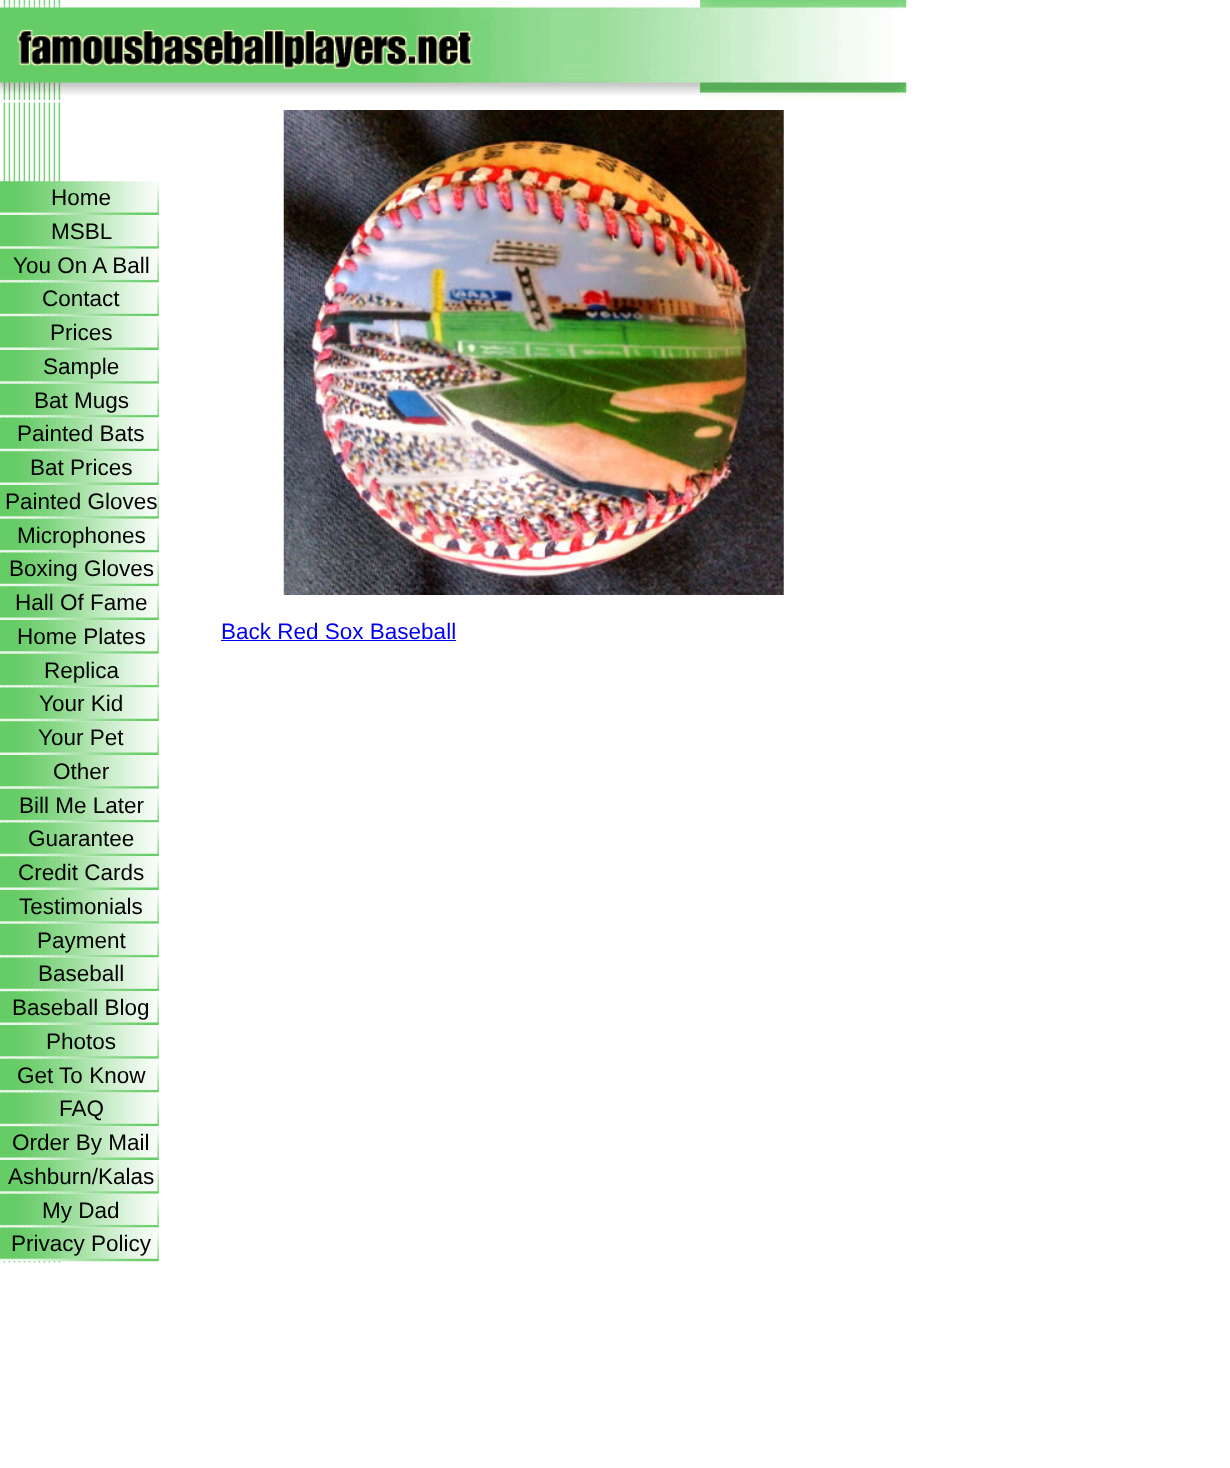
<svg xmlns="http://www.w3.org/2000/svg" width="1230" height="1468">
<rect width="100%" height="100%" fill="#fff"/>
<image x="0" y="0" width="907" height="100" href="media/1.png"/>
<image x="3" y="102" width="58" height="1161" href="media/2.png"/>
<image x="0" y="181" width="159" height="34" href="media/3.png"/>
<text x="51" y="205" style="font-family:Liberation Sans;font-size:22.5px;fill:#000">Home</text>
<image x="0" y="215" width="159" height="34" href="media/4.png"/>
<text x="51" y="239" style="font-family:Liberation Sans;font-size:22.5px;fill:#000">MSBL</text>
<image x="0" y="248" width="159" height="35" href="media/5.png"/>
<text x="13" y="273" style="font-family:Liberation Sans;font-size:22.5px;fill:#000">You On A Ball</text>
<image x="0" y="282" width="159" height="35" href="media/6.png"/>
<text x="42" y="306" style="font-family:Liberation Sans;font-size:22.5px;fill:#000">Contact</text>
<image x="0" y="316" width="159" height="34" href="media/7.png"/>
<text x="50" y="340" style="font-family:Liberation Sans;font-size:22.5px;fill:#000">Prices</text>
<image x="0" y="350" width="159" height="34" href="media/4.png"/>
<text x="43" y="374" style="font-family:Liberation Sans;font-size:22.5px;fill:#000">Sample</text>
<image x="0" y="383" width="159" height="35" href="media/5.png"/>
<text x="34" y="408" style="font-family:Liberation Sans;font-size:22.5px;fill:#000">Bat Mugs</text>
<image x="0" y="417" width="159" height="35" href="media/6.png"/>
<text x="17" y="441" style="font-family:Liberation Sans;font-size:22.5px;fill:#000">Painted Bats</text>
<image x="0" y="451" width="159" height="34" href="media/7.png"/>
<text x="30" y="475" style="font-family:Liberation Sans;font-size:22.5px;fill:#000">Bat Prices</text>
<image x="0" y="485" width="159" height="34" href="media/4.png"/>
<text x="5" y="509" style="font-family:Liberation Sans;font-size:22.5px;fill:#000">Painted Gloves</text>
<image x="0" y="518" width="159" height="35" href="media/5.png"/>
<text x="17" y="543" style="font-family:Liberation Sans;font-size:22.5px;fill:#000">Microphones</text>
<image x="0" y="552" width="159" height="35" href="media/6.png"/>
<text x="9" y="576" style="font-family:Liberation Sans;font-size:22.5px;fill:#000">Boxing Gloves</text>
<image x="0" y="586" width="159" height="34" href="media/8.png"/>
<text x="15" y="610" style="font-family:Liberation Sans;font-size:22.5px;fill:#000">Hall Of Fame</text>
<image x="0" y="620" width="159" height="34" href="media/4.png"/>
<text x="17" y="644" style="font-family:Liberation Sans;font-size:22.5px;fill:#000">Home Plates</text>
<image x="0" y="653" width="159" height="35" href="media/5.png"/>
<text x="44" y="678" style="font-family:Liberation Sans;font-size:22.5px;fill:#000">Replica</text>
<image x="0" y="687" width="159" height="35" href="media/6.png"/>
<text x="39" y="711" style="font-family:Liberation Sans;font-size:22.5px;fill:#000">Your Kid</text>
<image x="0" y="721" width="159" height="34" href="media/7.png"/>
<text x="38" y="745" style="font-family:Liberation Sans;font-size:22.5px;fill:#000">Your Pet</text>
<image x="0" y="755" width="159" height="34" href="media/4.png"/>
<text x="53" y="779" style="font-family:Liberation Sans;font-size:22.5px;fill:#000">Other</text>
<image x="0" y="788" width="159" height="35" href="media/5.png"/>
<text x="19" y="813" style="font-family:Liberation Sans;font-size:22.5px;fill:#000">Bill Me Later</text>
<image x="0" y="822" width="159" height="35" href="media/6.png"/>
<text x="28" y="846" style="font-family:Liberation Sans;font-size:22.5px;fill:#000">Guarantee</text>
<image x="0" y="856" width="159" height="34" href="media/7.png"/>
<text x="18" y="880" style="font-family:Liberation Sans;font-size:22.5px;fill:#000">Credit Cards</text>
<image x="0" y="890" width="159" height="34" href="media/4.png"/>
<text x="19" y="914" style="font-family:Liberation Sans;font-size:22.5px;fill:#000">Testimonials</text>
<image x="0" y="923" width="159" height="35" href="media/5.png"/>
<text x="37" y="948" style="font-family:Liberation Sans;font-size:22.5px;fill:#000">Payment</text>
<image x="0" y="957" width="159" height="35" href="media/6.png"/>
<text x="38" y="981" style="font-family:Liberation Sans;font-size:22.5px;fill:#000">Baseball</text>
<image x="0" y="991" width="159" height="34" href="media/7.png"/>
<text x="12" y="1015" style="font-family:Liberation Sans;font-size:22.5px;fill:#000">Baseball Blog</text>
<image x="0" y="1025" width="159" height="34" href="media/4.png"/>
<text x="46" y="1049" style="font-family:Liberation Sans;font-size:22.5px;fill:#000">Photos</text>
<image x="0" y="1058" width="159" height="35" href="media/5.png"/>
<text x="17" y="1083" style="font-family:Liberation Sans;font-size:22.5px;fill:#000">Get To Know</text>
<image x="0" y="1092" width="159" height="35" href="media/6.png"/>
<text x="59" y="1116" style="font-family:Liberation Sans;font-size:22.5px;fill:#000">FAQ</text>
<image x="0" y="1126" width="159" height="34" href="media/7.png"/>
<text x="12" y="1150" style="font-family:Liberation Sans;font-size:22.5px;fill:#000">Order By Mail</text>
<image x="0" y="1160" width="159" height="34" href="media/4.png"/>
<text x="8" y="1184" style="font-family:Liberation Sans;font-size:22.5px;fill:#000">Ashburn/Kalas</text>
<image x="0" y="1193" width="159" height="35" href="media/5.png"/>
<text x="42" y="1218" style="font-family:Liberation Sans;font-size:22.5px;fill:#000">My Dad</text>
<image x="0" y="1227" width="159" height="35" href="media/6.png"/>
<text x="11" y="1251" style="font-family:Liberation Sans;font-size:22.5px;fill:#000">Privacy Policy</text>
<image x="283" y="110" width="501" height="485" href="media/9.png"/>
<text x="221" y="639" style="font-family:Liberation Sans;font-size:22.5px;fill:#00e">Back Red Sox Baseball</text>
<rect x="221" y="640" width="235" height="1" fill="#00e"/>
</svg>
